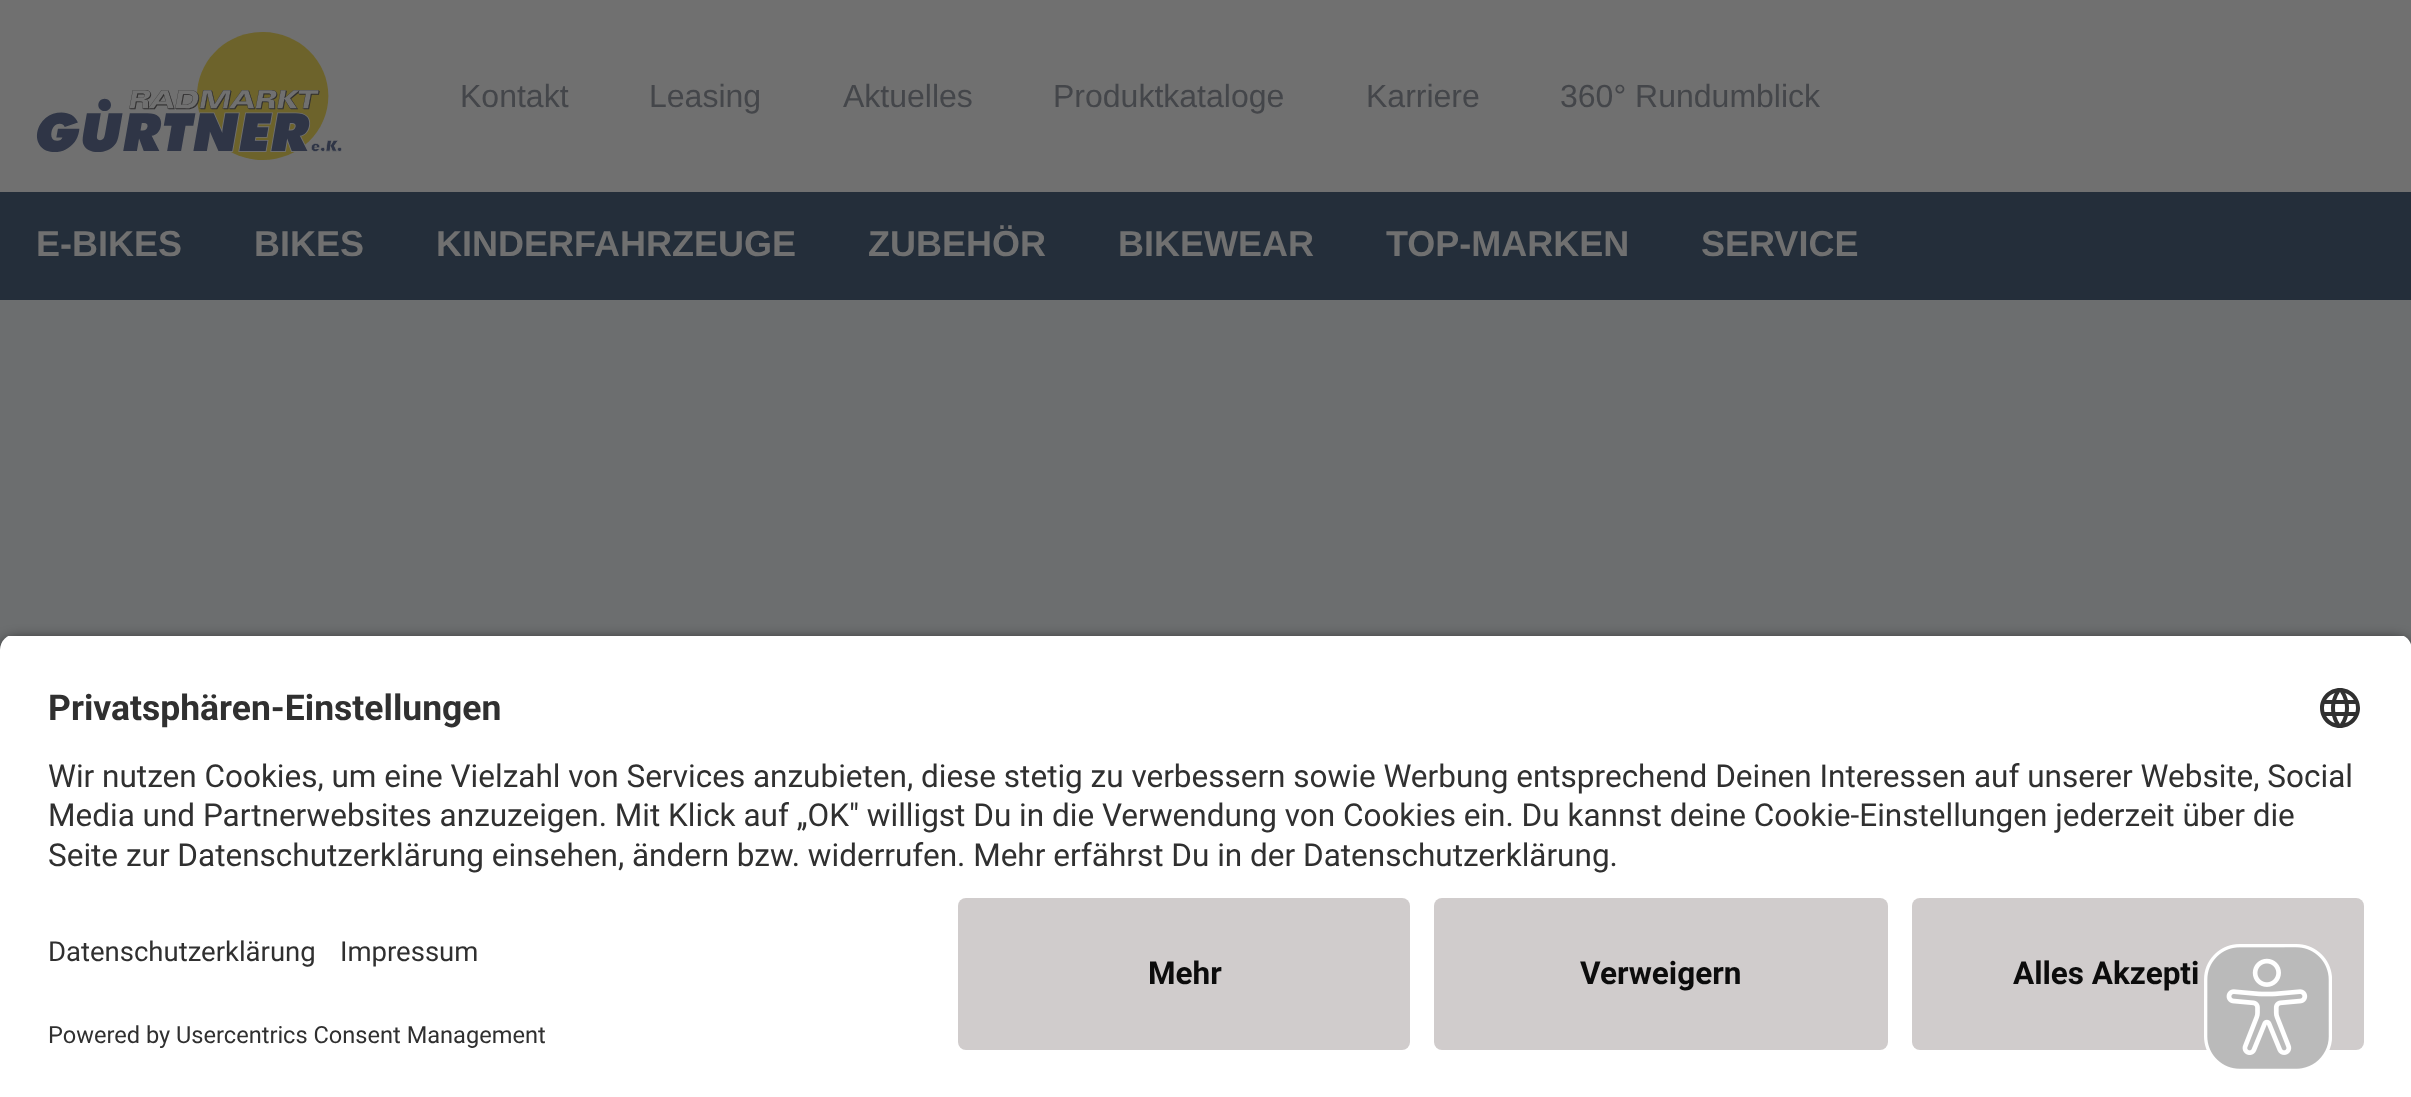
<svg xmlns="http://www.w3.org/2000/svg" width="2411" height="1097">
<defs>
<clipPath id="clip1"><path d="M16 634h2380c9 0 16 7 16 16v232h-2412v-232c0-9 7-16 16-16z"/></clipPath>
</defs>
<rect width="100%" height="100%" fill="#6c6e6f"/>
<rect width="2411" height="192" fill="#707070"/>
<image x="36" y="32" width="306" height="128" href="media/1.png"/>
<text x="460" y="107" style="font-family:Liberation Sans;font-size:32px;fill:#44464a">Kontakt</text>
<text x="649" y="107" style="font-family:Liberation Sans;font-size:32px;fill:#44464a">Leasing</text>
<text x="843" y="107" style="font-family:Liberation Sans;font-size:32px;fill:#44464a">Aktuelles</text>
<text x="1053" y="107" style="font-family:Liberation Sans;font-size:32px;fill:#44464a">Produktkataloge</text>
<text x="1366" y="107" style="font-family:Liberation Sans;font-size:32px;fill:#44464a">Karriere</text>
<text x="1560" y="107" style="font-family:Liberation Sans;font-size:32px;fill:#44464a">360° Rundumblick</text>
<rect y="192" width="2411" height="108" fill="#242e3a"/>
<text x="36" y="256" style="font-family:Liberation Sans;font-size:36px;font-weight:bold;fill:#707070">E-BIKES</text>
<text x="254" y="256" style="font-family:Liberation Sans;font-size:36px;font-weight:bold;fill:#707070">BIKES</text>
<text x="436" y="256" style="font-family:Liberation Sans;font-size:36px;font-weight:bold;fill:#707070">KINDERFAHRZEUGE</text>
<text x="868" y="256" style="font-family:Liberation Sans;font-size:36px;font-weight:bold;fill:#707070">ZUBEHÖR</text>
<text x="1118" y="256" style="font-family:Liberation Sans;font-size:36px;font-weight:bold;fill:#707070">BIKEWEAR</text>
<text x="1386" y="256" style="font-family:Liberation Sans;font-size:36px;font-weight:bold;fill:#707070">TOP-MARKEN</text>
<text x="1701" y="256" style="font-family:Liberation Sans;font-size:36px;font-weight:bold;fill:#707070">SERVICE</text>
<rect y="640" width="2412" height="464" rx="16" fill="#000000cc" filter="blur(7px)"/>
<g clip-path="url(#clip1)">
<rect y="636" width="2411" height="246" fill="#fff"/>
</g>
<text x="48" y="720" style="font-family:Roboto;font-size:35.5px;font-weight:bold;fill:#303030">Privatsphären-Einstellungen</text>
<image x="2320" y="688" width="40" height="40" href="media/2.png"/>
<text x="48" y="787" style="font-family:Roboto;font-size:31.5px;fill:#303030">Wir nutzen Cookies, um eine Vielzahl von Services anzubieten, diese stetig zu verbessern sowie Werbung entsprechend Deinen Interessen auf unserer Website, Social</text>
<text x="48" y="826" style="font-family:Roboto;font-size:31.5px;fill:#303030">Media und Partnerwebsites anzuzeigen. Mit Klick auf „OK" willigst Du in die Verwendung von Cookies ein. Du kannst deine Cookie-Einstellungen jederzeit über die</text>
<text x="48" y="866" style="font-family:Roboto;font-size:31.5px;fill:#303030">Seite zur Datenschutzerklärung einsehen, ändern bzw. widerrufen. Mehr erfährst Du in der Datenschutzerklärung.</text>
<rect y="882" width="2411" height="215" fill="#fff"/>
<text x="48" y="961" style="font-family:Roboto;font-size:27.5px;fill:#303030">Datenschutzerklärung</text>
<text x="340" y="961" style="font-family:Roboto;font-size:27.5px;fill:#303030">Impressum</text>
<text x="48" y="1043" style="font-family:Roboto;font-size:23.6px;fill:#303030">Powered by Usercentrics Consent Management</text>
<rect x="958" y="898" width="452" height="152" rx="8" fill="#d0cccc"/>
<text x="1148" y="984" style="font-family:Roboto;font-size:31.5px;font-weight:bold;fill:#0c0c0c">Mehr</text>
<rect x="1434" y="898" width="454" height="152" rx="8" fill="#d0cccc"/>
<text x="1580" y="984" style="font-family:Roboto;font-size:31.5px;font-weight:bold;fill:#0c0c0c">Verweigern</text>
<rect x="1912" y="898" width="452" height="152" rx="8" fill="#d0cccc"/>
<text x="2013" y="984" style="font-family:Roboto;font-size:31.5px;font-weight:bold;fill:#0c0c0c">Alles Akzepti</text>
<image x="2204" y="944" width="128" height="125" href="media/3.png"/>
</svg>
